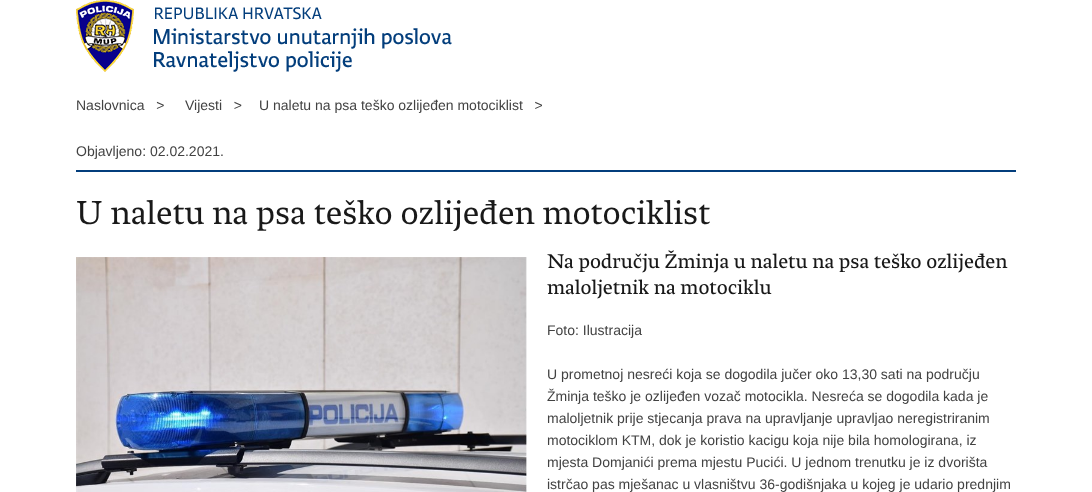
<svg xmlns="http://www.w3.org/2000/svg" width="1092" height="492">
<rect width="100%" height="100%" fill="#fff"/>
<image x="76" y="0" width="376" height="72" href="media/1.png"/>
<text x="76" y="110" style="font-family:Liberation Sans;font-size:14px;fill:#424242" xml:space="preserve">Naslovnica   &gt;</text>
<text x="185" y="110" style="font-family:Liberation Sans;font-size:14px;fill:#424242" xml:space="preserve">Vijesti   &gt;</text>
<text x="259" y="110" style="font-family:Liberation Sans;font-size:14px;fill:#424242" xml:space="preserve">U naletu na psa teško ozlijeđen motociklist   &gt;</text>
<rect x="76" y="170" width="940" height="2" fill="#033e7c"/>
<text x="76" y="156" style="font-family:Liberation Sans;font-size:14px;fill:#424242">Objavljeno: 02.02.2021.</text>
<text x="76" y="224" style="font-family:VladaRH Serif;font-size:35px;fill:#191919">U naletu na psa teško ozlijeđen motociklist</text>
<image x="76" y="257" width="451" height="235" href="media/2.png"/>
<text x="547" y="268" style="font-family:'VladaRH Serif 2';font-size:21px;fill:#191919">Na području Žminja u naletu na psa teško ozlijeđen</text>
<text x="547" y="294" style="font-family:'VladaRH Serif 2';font-size:21px;fill:#191919">maloljetnik na motociklu</text>
<text x="547" y="335" style="font-family:Liberation Sans;font-size:14px;fill:#424242">Foto: Ilustracija</text>
<text x="547" y="379" style="font-family:Liberation Sans;font-size:14px;fill:#424242">U prometnoj nesreći koja se dogodila jučer oko 13,30 sati na području</text>
<text x="547" y="401" style="font-family:Liberation Sans;font-size:14px;fill:#424242">Žminja teško je ozlijeđen vozač motocikla. Nesreća se dogodila kada je</text>
<text x="547" y="423" style="font-family:Liberation Sans;font-size:14px;fill:#424242">maloljetnik prije stjecanja prava na upravljanje upravljao neregistriranim</text>
<text x="547" y="445" style="font-family:Liberation Sans;font-size:14px;fill:#424242">motociklom KTM, dok je koristio kacigu koja nije bila homologirana, iz</text>
<text x="547" y="467" style="font-family:Liberation Sans;font-size:14px;fill:#424242">mjesta Domjanići prema mjestu Pucići. U jednom trenutku je iz dvorišta</text>
<text x="547" y="489" style="font-family:Liberation Sans;font-size:14px;fill:#424242">istrčao pas mješanac u vlasništvu 36-godišnjaka u kojeg je udario prednjim</text>
</svg>
